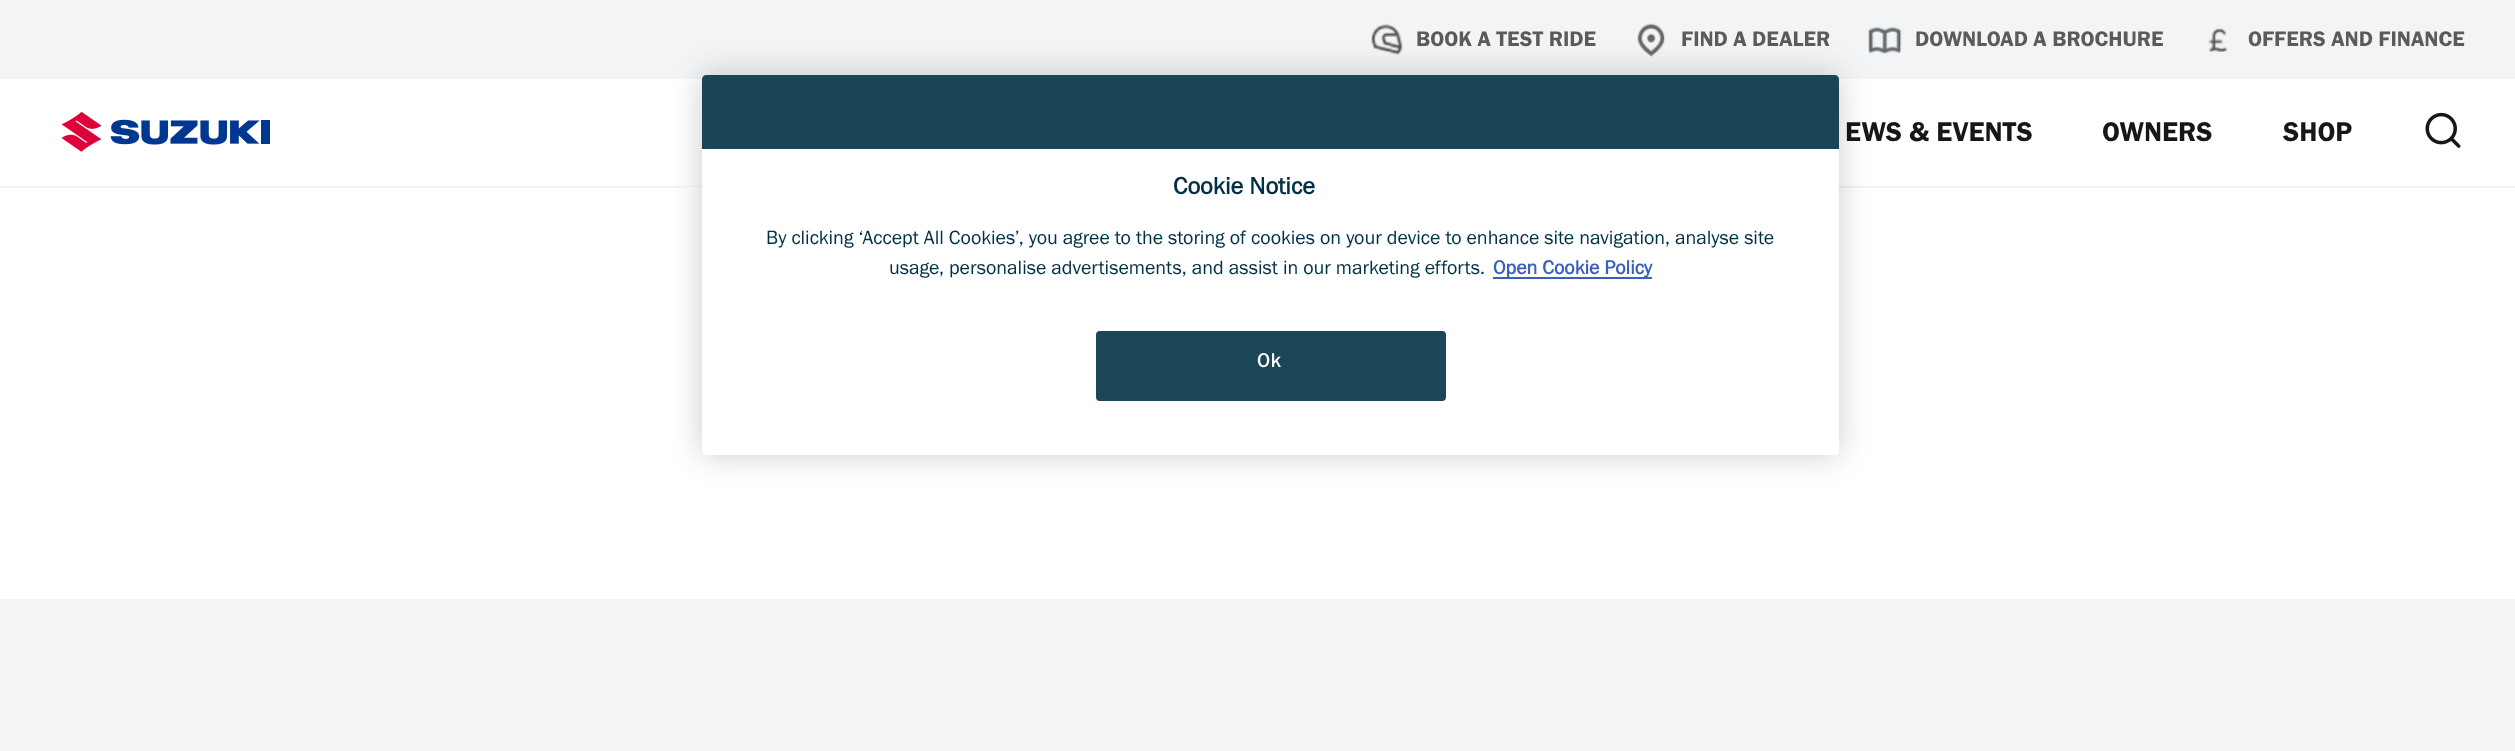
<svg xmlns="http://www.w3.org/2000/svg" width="2515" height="751">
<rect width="100%" height="100%" fill="#fff"/>
<rect width="2515" height="79" fill="#f2f4f5"/>
<image x="1371" y="23" width="32" height="32" href="media/1.png"/>
<text x="1416" y="46" style="font-family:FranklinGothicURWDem;font-size:21.9px;fill:#5b5b5b">BOOK A TEST RIDE</text>
<image x="1637" y="23" width="28" height="34" href="media/2.png"/>
<text x="1681" y="46" style="font-family:FranklinGothicURWDem;font-size:21.9px;fill:#5b5b5b">FIND A DEALER</text>
<image x="1868" y="26" width="34" height="28" href="media/3.png"/>
<text x="1915" y="46" style="font-family:FranklinGothicURWDem;font-size:21.9px;fill:#5b5b5b">DOWNLOAD A BROCHURE</text>
<image x="2208" y="28" width="20" height="24" href="media/4.png"/>
<text x="2248" y="46" style="font-family:FranklinGothicURWDem;font-size:21.9px;fill:#5b5b5b">OFFERS AND FINANCE</text>
<image x="61" y="111" width="209" height="41" href="media/5.png"/>
<text x="1845" y="141" style="font-family:FranklinGothicURWDem;font-size:28px;fill:#181717">EWS &amp; EVENTS</text>
<text x="2102" y="141" style="font-family:FranklinGothicURWDem;font-size:28px;fill:#181717">OWNERS</text>
<text x="2283" y="141" style="font-family:FranklinGothicURWDem;font-size:28px;fill:#181717">SHOP</text>
<image x="2425" y="112" width="36" height="36" href="media/6.png"/>
<rect y="599" width="2515" height="152" fill="#f2f4f5"/>
<rect y="186" width="2515" height="2" fill="#f2f4f5"/>
<rect x="681" y="187" width="1155" height="1" fill="#fff"/>
<rect x="702" y="75" width="1137" height="380" rx="4" fill="#00000033" filter="blur(16px)"/>
<rect x="702" y="75" width="1137" height="380" rx="4" fill="#fff"/>
<path d="M706 75h1129c2 0 4 2 4 4v70h-1137v-70c0-2 2-4 4-4z" fill="#003145e6"/>
<text x="1173" y="194" style="font-family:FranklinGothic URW;font-size:24.5px;font-weight:bold;fill:#003145">Cookie Notice</text>
<text x="766" y="244" style="font-family:FranklinGothic URW;font-size:19.92px;fill:#003145">By clicking ‘Accept All Cookies’, you agree to the storing of cookies on your device to enhance site navigation, analyse site</text>
<text x="889" y="274" style="font-family:FranklinGothic URW;font-size:19.92px;fill:#003145">usage, personalise advertisements, and assist in our marketing efforts.</text>
<rect x="1493" y="277" width="159" height="2" fill="#3860be"/>
<text x="1493" y="274" style="font-family:FranklinGothic URW;font-size:19.92px;font-weight:bold;fill:#3860be">Open Cookie Policy</text>
<rect x="1096" y="331" width="350" height="70" rx="4" fill="#1a4658"/>
<text x="1257" y="367" style="font-family:FranklinGothic URW;font-size:19.92px;font-weight:bold;letter-spacing:1px;fill:#fff">Ok</text>
</svg>
